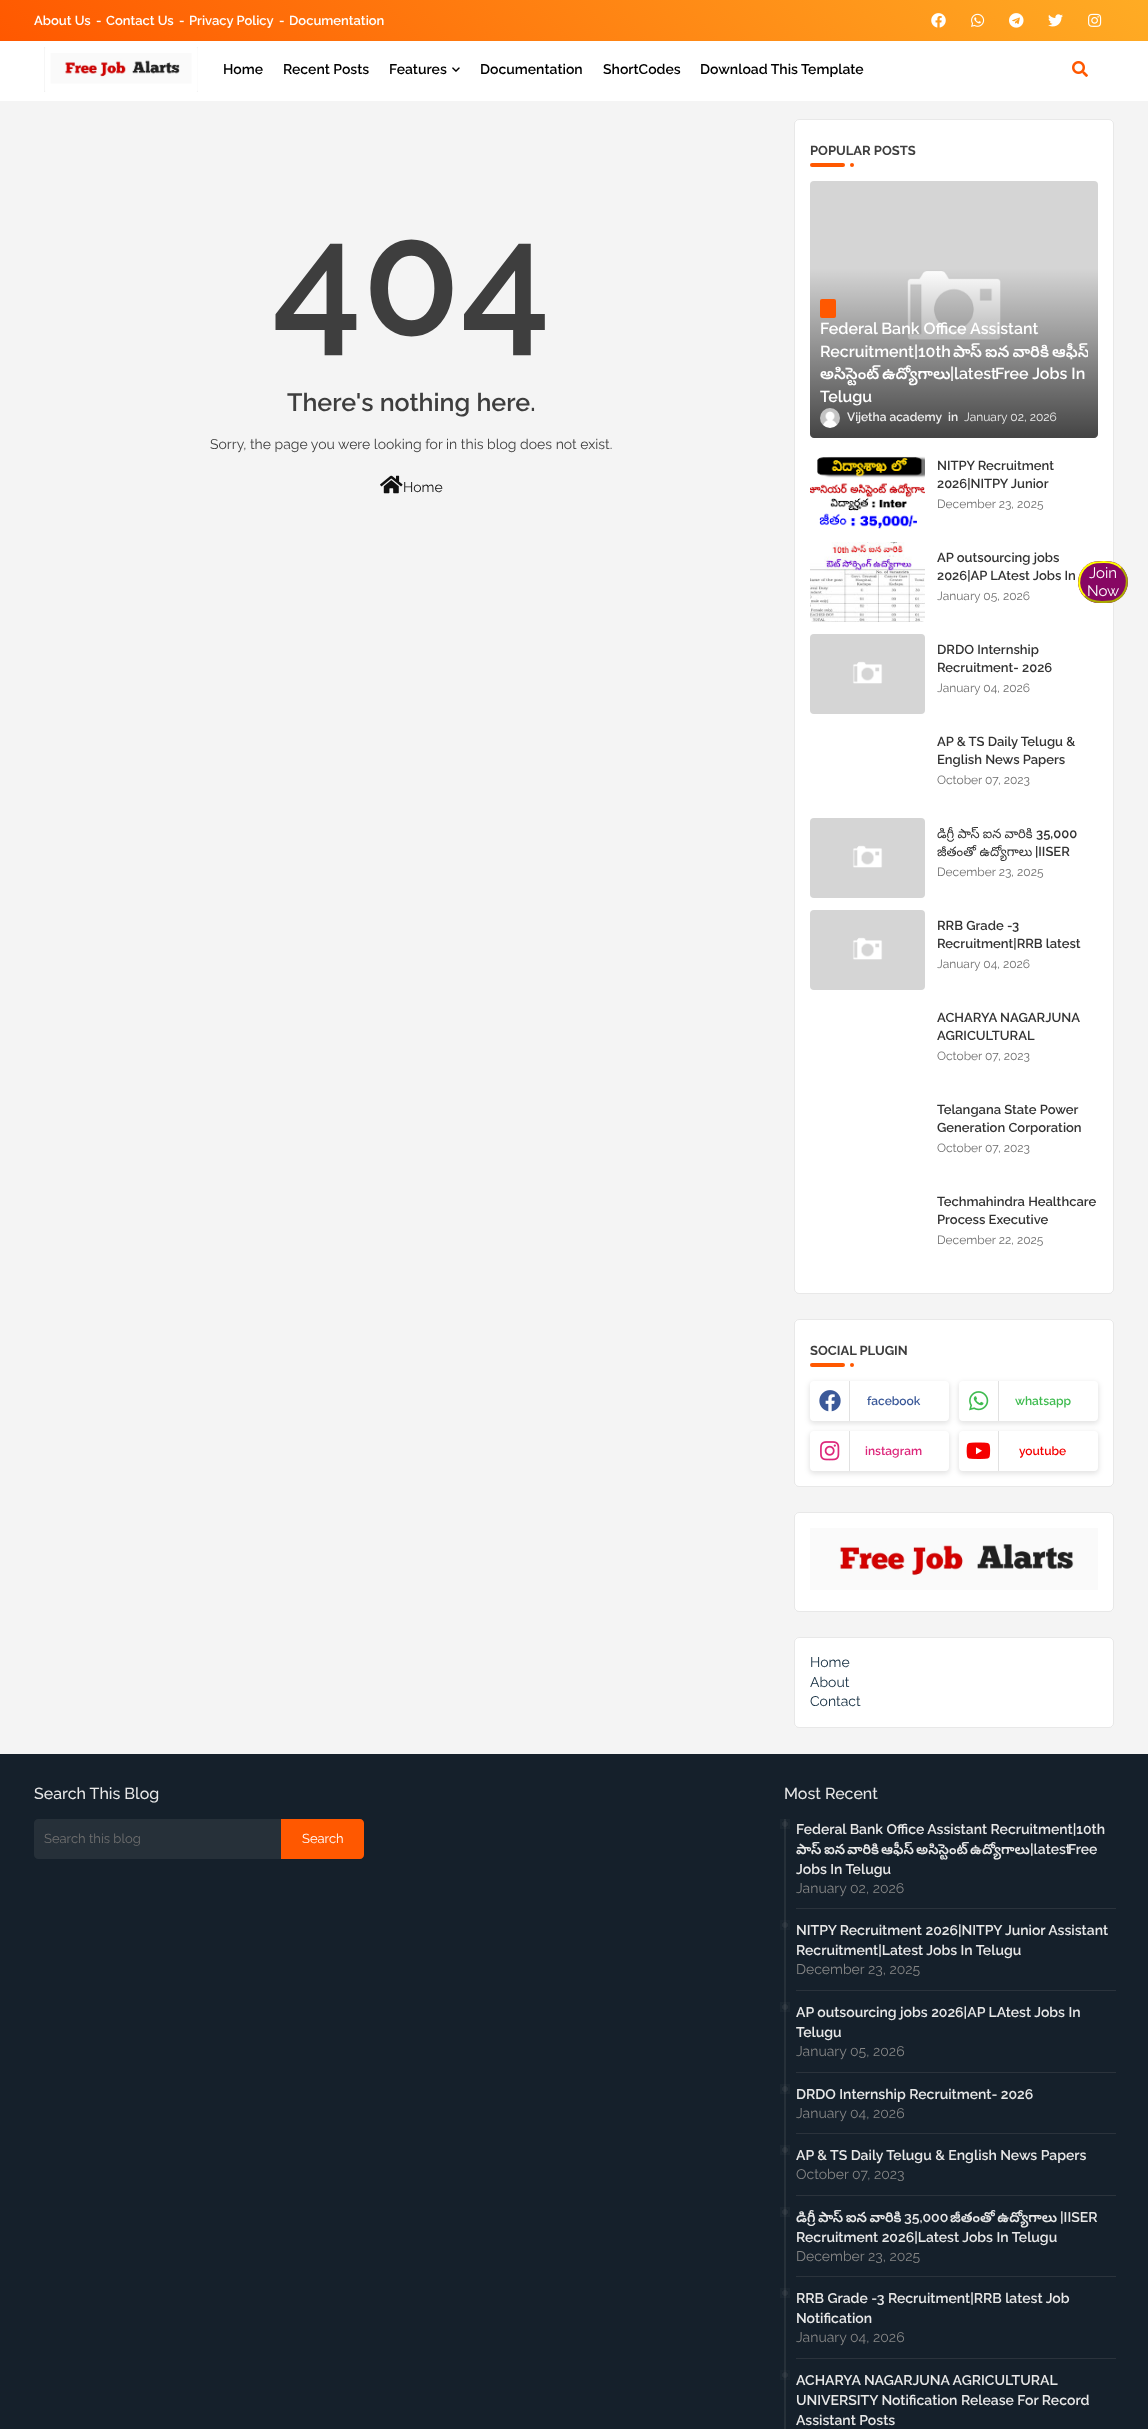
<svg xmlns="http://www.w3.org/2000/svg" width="1148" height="2429">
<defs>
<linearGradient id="g1" gradientUnits="userSpaceOnUse" x1="277" y1="318" x2="871" y2="-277"><stop offset="0" stop-color="#ff5800"/><stop offset="1" stop-color="#ffac24"/></linearGradient>
<linearGradient id="g2" gradientUnits="userSpaceOnUse" x1="954" y1="268" x2="954" y2="438"><stop offset="0" stop-color="#000" stop-opacity="0"/><stop offset="1" stop-color="#000" stop-opacity="0.68"/></linearGradient>
<clipPath id="clip1"><rect x="820" y="318" width="268" height="90"/></clipPath>
</defs>
<rect width="100%" height="100%" fill="#f4f4f4"/>
<rect width="1148" height="41" fill="url(#g1)"/>
<text x="34" y="25" style="font-family:Raleway;font-size:13px;font-weight:600;fill:#fff">About Us</text>
<text x="96" y="25" style="font-family:Raleway;font-size:13px;font-weight:600;fill:#fff">-</text>
<text x="106" y="25" style="font-family:Raleway;font-size:13px;font-weight:600;fill:#fff">Contact Us</text>
<text x="179" y="25" style="font-family:Raleway;font-size:13px;font-weight:600;fill:#fff">-</text>
<text x="189" y="25" style="font-family:Raleway;font-size:13px;font-weight:600;fill:#fff">Privacy Policy</text>
<text x="279" y="25" style="font-family:Raleway;font-size:13px;font-weight:600;fill:#fff">-</text>
<text x="289" y="25" style="font-family:Raleway;font-size:13px;font-weight:600;fill:#fff">Documentation</text>
<image x="931" y="13" width="15" height="15" href="media/1.png"/>
<image x="971" y="13" width="14" height="14" href="media/2.png"/>
<image x="1009" y="13" width="15" height="15" href="media/3.png"/>
<image x="1048" y="14" width="15" height="13" href="media/4.png"/>
<image x="1088" y="13" width="14" height="14" href="media/5.png"/>
<rect y="41" width="1148" height="60" fill="#fff"/>
<image x="44" y="47" width="154" height="45" href="media/6.png"/>
<text x="223" y="74" style="font-family:Raleway;font-size:14px;font-weight:600;fill:#000">Home</text>
<text x="283" y="74" style="font-family:Raleway;font-size:14px;font-weight:600;fill:#000">Recent Posts</text>
<text x="389" y="74" style="font-family:Raleway;font-size:14px;font-weight:600;fill:#000">Features</text>
<image x="452" y="67" width="8" height="5" href="media/7.png"/>
<text x="480" y="74" style="font-family:Raleway;font-size:14px;font-weight:600;fill:#000">Documentation</text>
<text x="603" y="74" style="font-family:Raleway;font-size:14px;font-weight:600;fill:#000">ShortCodes</text>
<text x="700" y="74" style="font-family:Raleway;font-size:14px;font-weight:600;fill:#000">Download This Template</text>
<image x="1072" y="61" width="16" height="16" href="media/8.png"/>
<text x="272" y="335" style="font-family:Raleway;font-size:160px;font-weight:600;fill:#3e3e3e">404</text>
<text x="287" y="411" style="font-family:Raleway;font-size:25px;font-weight:600;fill:#3e3e3e">There's nothing here.</text>
<text x="210" y="449" style="font-family:Raleway;font-size:14px;fill:#3e3e3e">Sorry, the page you were looking for in this blog does not exist.</text>
<image x="380" y="475" width="23" height="19" href="media/9.png"/>
<text x="403" y="492" style="font-family:Raleway;font-size:14px;fill:#101010">Home</text>
<rect x="794" y="119" width="320" height="1175" rx="5" fill="#fff"/>
<rect x="794.5" y="119.5" width="319" height="1174" rx="4.5" fill="none" stroke="#6d6d6d29"/>
<text x="810" y="155" style="font-family:Raleway;font-size:13px;font-weight:bold;fill:#3e3e3e">POPULAR POSTS</text>
<rect x="810" y="163" width="35" height="4" rx="2" fill="#ff5800"/>
<circle cx="852" cy="165" r="2" fill="#ff5800"/>
<image x="810" y="181" width="288" height="257" href="media/10.png"/>
<path d="M810 268h288v166c0 2-2 4-4 4h-280c-2 0-4-2-4-4z" fill="url(#g2)"/>
<rect x="820" y="299" width="16" height="19" rx="2" fill="#ff5800"/>
<text x="820" y="334" style="font-family:Raleway;font-size:16px;font-weight:600;fill:#fff">Federal Bank Office Assistant</text>
<text x="820" y="357" style="font-family:Raleway;font-size:16px;font-weight:600;fill:#fff">Recruitment|10th</text>
<g clip-path="url(#clip1)">
<text x="953" y="357" word-spacing="-1.5" style="font-family:Noto Sans Telugu;font-size:16px;font-weight:600;fill:#fff">పాస్ ఐన వారికి ఆఫీస్</text>
</g>
<text x="820" y="379" style="font-family:Noto Sans Telugu;font-size:16px;font-weight:600;fill:#fff">అసిస్టెంట్</text>
<text x="882" y="379" style="font-family:Noto Sans Telugu;font-size:16px;font-weight:600;fill:#fff">ఉద్యోగాలు</text>
<text x="950" y="379" style="font-family:Raleway;font-size:16px;font-weight:600;fill:#fff">|latest</text>
<text x="995" y="379" style="font-family:Raleway;font-size:16px;font-weight:600;fill:#fff">Free Jobs In</text>
<text x="820" y="402" style="font-family:Raleway;font-size:16px;font-weight:600;fill:#fff">Telugu</text>
<image x="820" y="408" width="20" height="20" href="media/11.png"/>
<text x="847" y="421" style="font-family:Raleway;font-size:12px;font-weight:600;fill:#eee">Vijetha academy</text>
<text x="948" y="421" style="font-family:Raleway;font-size:12px;font-weight:600;fill:#eee">in</text>
<text x="964" y="421" style="font-family:Raleway;font-size:12px;fill:#eee">January 02, 2026</text>
<image x="810" y="456" width="115" height="73" href="media/12.png"/>
<text x="937" y="470" style="font-family:Raleway;font-size:13px;font-weight:600;fill:#333">NITPY Recruitment</text>
<text x="937" y="488" style="font-family:Raleway;font-size:13px;font-weight:600;fill:#333">2026|NITPY Junior</text>
<text x="937" y="508" style="font-family:Raleway;font-size:12px;fill:#707070">December 23, 2025</text>
<image x="810" y="542" width="115" height="80" href="media/13.png"/>
<text x="937" y="562" style="font-family:Raleway;font-size:13px;font-weight:600;fill:#333">AP outsourcing jobs</text>
<text x="937" y="580" style="font-family:Raleway;font-size:13px;font-weight:600;fill:#333">2026|AP LAtest Jobs In</text>
<text x="937" y="600" style="font-family:Raleway;font-size:12px;fill:#707070">January 05, 2026</text>
<image x="810" y="634" width="115" height="80" href="media/14.png"/>
<text x="937" y="654" style="font-family:Raleway;font-size:13px;font-weight:600;fill:#333">DRDO Internship</text>
<text x="937" y="672" style="font-family:Raleway;font-size:13px;font-weight:600;fill:#333">Recruitment- 2026</text>
<text x="937" y="692" style="font-family:Raleway;font-size:12px;fill:#707070">January 04, 2026</text>
<text x="937" y="746" style="font-family:Raleway;font-size:13px;font-weight:600;fill:#333">AP &amp; TS Daily Telugu &amp;</text>
<text x="937" y="764" style="font-family:Raleway;font-size:13px;font-weight:600;fill:#333">English News Papers</text>
<text x="937" y="784" style="font-family:Raleway;font-size:12px;fill:#707070">October 07, 2023</text>
<image x="810" y="818" width="115" height="80" href="media/15.png"/>
<text x="937" y="838" word-spacing="-0.5" style="font-family:Noto Sans Telugu;font-size:13px;fill:#333">డిగ్రీ పాస్ ఐన వారికి</text>
<text x="1036" y="838" style="font-family:Raleway;font-size:13px;font-weight:600;fill:#333">35,000</text>
<text x="937" y="856" style="font-family:Noto Sans Telugu;font-size:13px;fill:#333">జీతంతో ఉద్యోగాలు</text>
<text x="1035" y="856" style="font-family:Raleway;font-size:13px;font-weight:600;fill:#333">|IISER</text>
<text x="937" y="876" style="font-family:Raleway;font-size:12px;fill:#707070">December 23, 2025</text>
<image x="810" y="910" width="115" height="80" href="media/14.png"/>
<text x="937" y="930" style="font-family:Raleway;font-size:13px;font-weight:600;fill:#333">RRB Grade -3</text>
<text x="937" y="948" style="font-family:Raleway;font-size:13px;font-weight:600;fill:#333">Recruitment|RRB latest</text>
<text x="937" y="968" style="font-family:Raleway;font-size:12px;fill:#707070">January 04, 2026</text>
<text x="937" y="1022" style="font-family:Raleway;font-size:13px;font-weight:600;fill:#333">ACHARYA NAGARJUNA</text>
<text x="937" y="1040" style="font-family:Raleway;font-size:13px;font-weight:600;fill:#333">AGRICULTURAL</text>
<text x="937" y="1060" style="font-family:Raleway;font-size:12px;fill:#707070">October 07, 2023</text>
<text x="937" y="1114" style="font-family:Raleway;font-size:13px;font-weight:600;fill:#333">Telangana State Power</text>
<text x="937" y="1132" style="font-family:Raleway;font-size:13px;font-weight:600;fill:#333">Generation Corporation</text>
<text x="937" y="1152" style="font-family:Raleway;font-size:12px;fill:#707070">October 07, 2023</text>
<text x="937" y="1206" style="font-family:Raleway;font-size:13px;font-weight:600;fill:#333">Techmahindra Healthcare</text>
<text x="937" y="1224" style="font-family:Raleway;font-size:13px;font-weight:600;fill:#333">Process Executive</text>
<text x="937" y="1244" style="font-family:Raleway;font-size:12px;fill:#707070">December 22, 2025</text>
<rect x="794" y="1319" width="320" height="168" rx="5" fill="#fff"/>
<rect x="794.5" y="1319.5" width="319" height="167" rx="4.5" fill="none" stroke="#6d6d6d29"/>
<text x="810" y="1355" style="font-family:Raleway;font-size:13px;font-weight:bold;fill:#3e3e3e">SOCIAL PLUGIN</text>
<rect x="810" y="1363" width="35" height="4" rx="2" fill="#ff5800"/>
<circle cx="852" cy="1365" r="2" fill="#ff5800"/>
<rect x="809" y="1382" width="141" height="42" rx="5" fill="#0000001a" filter="blur(2.5px)"/>
<rect x="810" y="1381" width="139" height="40" rx="4" fill="#fff"/>
<rect x="849" y="1381" width="1" height="40" fill="#e1e1e1"/>
<image x="819" y="1390" width="22" height="22" href="media/16.png"/>
<text x="867" y="1405" style="font-family:Raleway;font-size:12px;font-weight:600;fill:#3b5999">facebook</text>
<rect x="958" y="1382" width="141" height="42" rx="5" fill="#0000001a" filter="blur(2.5px)"/>
<rect x="959" y="1381" width="139" height="40" rx="4" fill="#fff"/>
<rect x="998" y="1381" width="1" height="40" fill="#e1e1e1"/>
<image x="969" y="1391" width="20" height="20" href="media/17.png"/>
<text x="1015" y="1405" style="font-family:Raleway;font-size:12px;font-weight:600;fill:#3fbb50">whatsapp</text>
<rect x="809" y="1432" width="141" height="42" rx="5" fill="#0000001a" filter="blur(2.5px)"/>
<rect x="810" y="1431" width="139" height="40" rx="4" fill="#fff"/>
<rect x="849" y="1431" width="1" height="40" fill="#e1e1e1"/>
<image x="820" y="1441" width="20" height="20" href="media/18.png"/>
<text x="865" y="1455" style="font-family:Raleway;font-size:12px;font-weight:600;fill:#dd277b">instagram</text>
<rect x="958" y="1432" width="141" height="42" rx="5" fill="#0000001a" filter="blur(2.5px)"/>
<rect x="959" y="1431" width="139" height="40" rx="4" fill="#fff"/>
<rect x="998" y="1431" width="1" height="40" fill="#e1e1e1"/>
<image x="966" y="1442" width="25" height="17" href="media/19.png"/>
<text x="1019" y="1455" style="font-family:Raleway;font-size:12px;font-weight:600;fill:#f50000">youtube</text>
<rect x="794" y="1512" width="320" height="100" rx="5" fill="#fff"/>
<rect x="794.5" y="1512.5" width="319" height="99" rx="4.5" fill="none" stroke="#6d6d6d29"/>
<image x="810" y="1528" width="288" height="62" href="media/20.png"/>
<rect x="794" y="1637" width="320" height="91" rx="5" fill="#fff"/>
<rect x="794.5" y="1637.5" width="319" height="90" rx="4.5" fill="none" stroke="#6d6d6d29"/>
<text x="810" y="1667" style="font-family:Raleway;font-size:14px;fill:#112b3e">Home</text>
<text x="810" y="1687" style="font-family:Raleway;font-size:14px;fill:#112b3e">About</text>
<text x="810" y="1706" style="font-family:Raleway;font-size:14px;fill:#112b3e">Contact</text>
<rect y="1754" width="1148" height="675" fill="#15202b"/>
<text x="34" y="1799" style="font-family:Raleway;font-size:16px;font-weight:500;fill:#e8e8e8">Search This Blog</text>
<path d="M38 1819h243v40h-243c-2 0-4-2-4-4v-32c0-2 2-4 4-4z" fill="#263039"/>
<text x="44" y="1843" style="font-family:Raleway;font-size:13px;fill:#707070">Search this blog</text>
<path d="M281 1819h79c2 0 4 2 4 4v32c0 2-2 4-4 4h-79z" fill="#ff5800"/>
<text x="302" y="1843" style="font-family:Raleway;font-size:13px;fill:#fff">Search</text>
<text x="784" y="1799" style="font-family:Raleway;font-size:16px;font-weight:500;fill:#e8e8e8">Most Recent</text>
<rect x="784" y="1819" width="2" height="610" fill="#263039"/>
<rect x="796" y="1908" width="320" height="1" fill="#2b333c"/>
<circle cx="785" cy="1824" r="3" fill="#9b9b9b26"/>
<rect x="781" y="1820" width="8" height="8" fill="none" stroke="#9b9b9b0d" stroke-width="2"/>
<text x="796" y="1834" style="font-family:Raleway;font-size:14px;font-weight:600;fill:#e8e8e8">Federal Bank Office Assistant Recruitment|10th</text>
<text x="796" y="1854" style="font-family:Noto Sans Telugu;font-size:14px;font-weight:600;fill:#e8e8e8">పాస్</text>
<text x="824" y="1854" style="font-family:Noto Sans Telugu;font-size:14px;font-weight:600;fill:#e8e8e8">ఐన</text>
<text x="847" y="1854" style="font-family:Noto Sans Telugu;font-size:14px;font-weight:600;fill:#e8e8e8">వారికి</text>
<text x="881" y="1854" style="font-family:Noto Sans Telugu;font-size:14px;font-weight:600;fill:#e8e8e8">ఆఫీస్</text>
<text x="916" y="1854" style="font-family:Noto Sans Telugu;font-size:14px;font-weight:600;fill:#e8e8e8">అసిస్టెంట్</text>
<text x="970" y="1854" style="font-family:Noto Sans Telugu;font-size:14px;font-weight:600;fill:#e8e8e8">ఉద్యోగాలు</text>
<text x="1030" y="1854" style="font-family:Raleway;font-size:14px;font-weight:600;fill:#e8e8e8">|latest</text>
<text x="1068" y="1854" style="font-family:Raleway;font-size:14px;font-weight:600;fill:#e8e8e8">Free</text>
<text x="796" y="1874" style="font-family:Raleway;font-size:14px;font-weight:600;fill:#e8e8e8">Jobs In Telugu</text>
<text x="796" y="1893" style="font-family:Raleway;font-size:14px;fill:#868686">January 02, 2026</text>
<rect x="796" y="1990" width="320" height="1" fill="#2b333c"/>
<circle cx="785" cy="1925" r="3" fill="#9b9b9b26"/>
<rect x="781" y="1921" width="8" height="8" fill="none" stroke="#9b9b9b0d" stroke-width="2"/>
<text x="796" y="1935" style="font-family:Raleway;font-size:14px;font-weight:600;fill:#e8e8e8">NITPY Recruitment 2026|NITPY Junior Assistant</text>
<text x="796" y="1955" style="font-family:Raleway;font-size:14px;font-weight:600;fill:#e8e8e8">Recruitment|Latest Jobs In Telugu</text>
<text x="796" y="1974" style="font-family:Raleway;font-size:14px;fill:#868686">December 23, 2025</text>
<rect x="796" y="2072" width="320" height="1" fill="#2b333c"/>
<circle cx="785" cy="2007" r="3" fill="#9b9b9b26"/>
<rect x="781" y="2003" width="8" height="8" fill="none" stroke="#9b9b9b0d" stroke-width="2"/>
<text x="796" y="2017" style="font-family:Raleway;font-size:14px;font-weight:600;fill:#e8e8e8">AP outsourcing jobs 2026|AP LAtest Jobs In</text>
<text x="796" y="2037" style="font-family:Raleway;font-size:14px;font-weight:600;fill:#e8e8e8">Telugu</text>
<text x="796" y="2056" style="font-family:Raleway;font-size:14px;fill:#868686">January 05, 2026</text>
<rect x="796" y="2133" width="320" height="1" fill="#2b333c"/>
<circle cx="785" cy="2089" r="3" fill="#9b9b9b26"/>
<rect x="781" y="2085" width="8" height="8" fill="none" stroke="#9b9b9b0d" stroke-width="2"/>
<text x="796" y="2099" style="font-family:Raleway;font-size:14px;font-weight:600;fill:#e8e8e8">DRDO Internship Recruitment- 2026</text>
<text x="796" y="2118" style="font-family:Raleway;font-size:14px;fill:#868686">January 04, 2026</text>
<rect x="796" y="2195" width="320" height="1" fill="#2b333c"/>
<circle cx="785" cy="2150" r="3" fill="#9b9b9b26"/>
<rect x="781" y="2146" width="8" height="8" fill="none" stroke="#9b9b9b0d" stroke-width="2"/>
<text x="796" y="2160" style="font-family:Raleway;font-size:14px;font-weight:600;fill:#e8e8e8">AP &amp; TS Daily Telugu &amp; English News Papers</text>
<text x="796" y="2179" style="font-family:Raleway;font-size:14px;fill:#868686">October 07, 2023</text>
<rect x="796" y="2276" width="320" height="1" fill="#2b333c"/>
<circle cx="785" cy="2212" r="3" fill="#9b9b9b26"/>
<rect x="781" y="2208" width="8" height="8" fill="none" stroke="#9b9b9b0d" stroke-width="2"/>
<text x="796" y="2222" word-spacing="-1.5" style="font-family:Noto Sans Telugu;font-size:14px;font-weight:600;fill:#e8e8e8">డిగ్రీ పాస్ ఐన వారికి</text>
<text x="904" y="2222" style="font-family:Raleway;font-size:14px;font-weight:600;fill:#e8e8e8">35,000</text>
<text x="950" y="2222" word-spacing="-1.5" style="font-family:Noto Sans Telugu;font-size:14px;font-weight:600;fill:#e8e8e8">జీతంతో ఉద్యోగాలు</text>
<text x="1060" y="2222" style="font-family:Raleway;font-size:14px;font-weight:600;fill:#e8e8e8">|IISER</text>
<text x="796" y="2242" style="font-family:Raleway;font-size:14px;font-weight:600;fill:#e8e8e8">Recruitment 2026|Latest Jobs In Telugu</text>
<text x="796" y="2261" style="font-family:Raleway;font-size:14px;fill:#868686">December 23, 2025</text>
<rect x="796" y="2358" width="320" height="1" fill="#2b333c"/>
<circle cx="785" cy="2293" r="3" fill="#9b9b9b26"/>
<rect x="781" y="2289" width="8" height="8" fill="none" stroke="#9b9b9b0d" stroke-width="2"/>
<text x="796" y="2303" style="font-family:Raleway;font-size:14px;font-weight:600;fill:#e8e8e8">RRB Grade -3 Recruitment|RRB latest Job</text>
<text x="796" y="2323" style="font-family:Raleway;font-size:14px;font-weight:600;fill:#e8e8e8">Notification</text>
<text x="796" y="2342" style="font-family:Raleway;font-size:14px;fill:#868686">January 04, 2026</text>
<circle cx="785" cy="2375" r="3" fill="#9b9b9b26"/>
<rect x="781" y="2371" width="8" height="8" fill="none" stroke="#9b9b9b0d" stroke-width="2"/>
<text x="796" y="2385" style="font-family:Raleway;font-size:14px;font-weight:600;fill:#e8e8e8">ACHARYA NAGARJUNA AGRICULTURAL</text>
<text x="796" y="2405" style="font-family:Raleway;font-size:14px;font-weight:600;fill:#e8e8e8">UNIVERSITY Notification Release For Record</text>
<text x="796" y="2425" style="font-family:Raleway;font-size:14px;font-weight:600;fill:#e8e8e8">Assistant Posts</text>
<rect x="1078" y="561" width="50" height="42" rx="21" fill="#870763"/>
<path d="M1121 568c10 10 6.5 27-6.5 32.5c-4 1.5-8 1.5-12.5 1.5c-6.5 0-12.5-1-17-6" fill="none" stroke="#aa0" stroke-width="2"/>
<path d="M1085 596c-10-10-6.5-27 6.5-32.5c4-1.5 8-1.5 12.5-1.5c6.5 0 12.5 1 17 6" fill="none" stroke="#ff0" stroke-width="2"/>
<text x="1089" y="578" style="font-family:Raleway;font-size:15px;fill:#fff">Join</text>
<text x="1087" y="596" style="font-family:Raleway;font-size:15px;fill:#fff">Now</text>
</svg>
